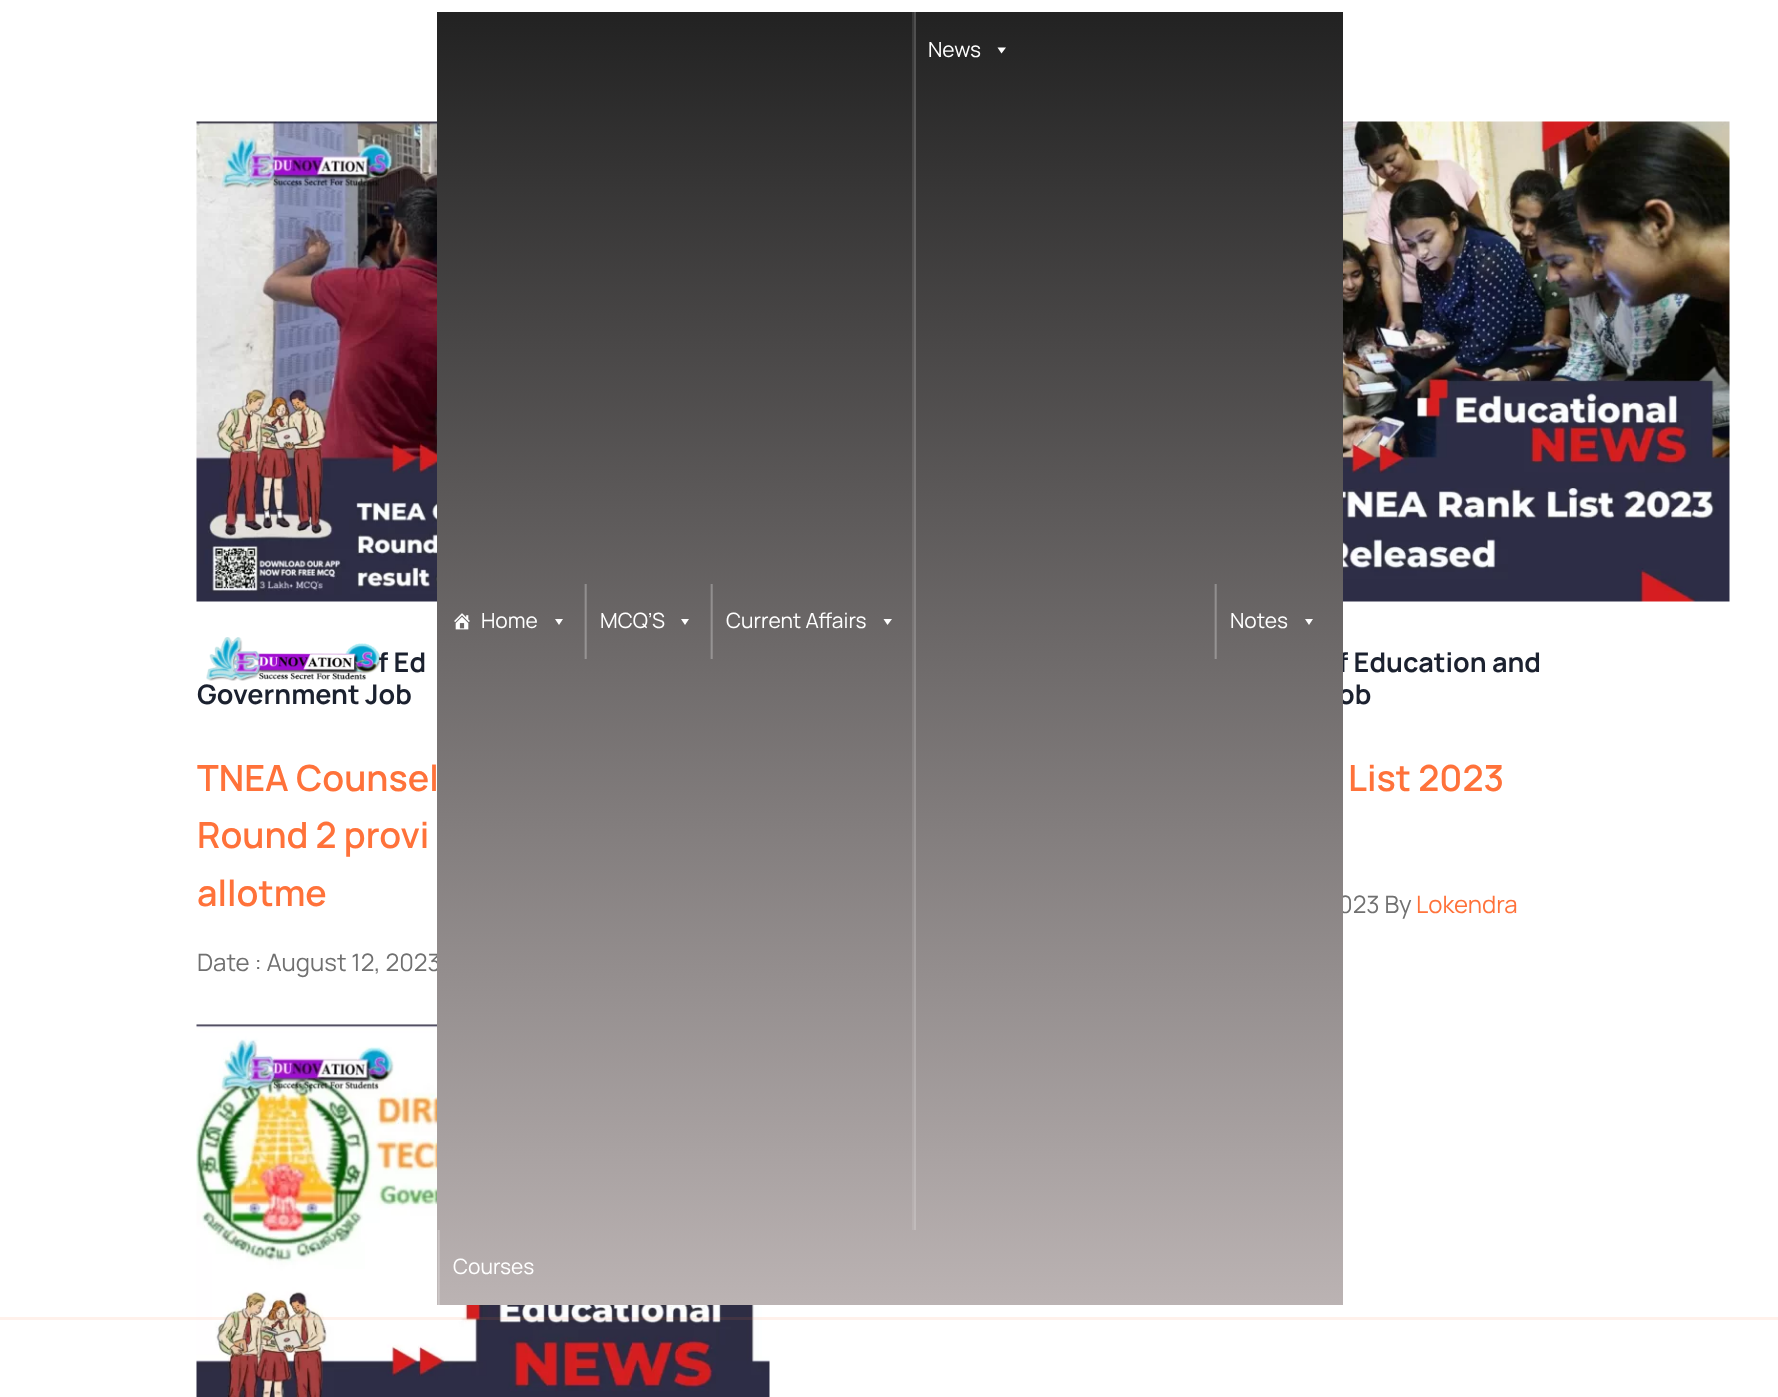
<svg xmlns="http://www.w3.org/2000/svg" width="1778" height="1397">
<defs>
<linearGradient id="g1" gradientUnits="userSpaceOnUse" x1="890" y1="12" x2="890" y2="1305"><stop offset="0" stop-color="#222"/><stop offset="1" stop-color="#bbb3b3"/></linearGradient>
</defs>
<rect width="100%" height="100%" fill="#fff"/>
<image x="196" y="1024" width="574" height="373" href="media/5.png"/>
<rect y="1317" width="1778" height="3" fill="#ff723a1a"/>
<text x="378" y="672" style="font-family:Manrope;font-size:27px;font-weight:bold;fill:#1b212f">f Ed</text>
<image x="206" y="637" width="175" height="44" href="media/1.png"/>
<text x="197" y="971" style="font-family:Manrope;font-size:24px;fill:#707070">Date : August 12, 2023</text>
<text x="1338" y="672" style="font-family:Manrope;font-size:27px;font-weight:bold;fill:#1b212f">f Education and</text>
<text x="1338" y="704" style="font-family:Manrope;font-size:27px;font-weight:bold;fill:#1b212f">ob</text>
<text x="1338" y="913" style="font-family:Manrope;font-size:24px;fill:#707070">023 By</text>
<rect x="437" y="12" width="906" height="1293" fill="url(#g1)"/>
<rect x="914" y="12" width="2" height="1218" fill="#ffffff33"/>
<rect x="912" y="12" width="2" height="1218" fill="#ffffff1a"/>
<text x="928" y="57" style="font-family:Manrope;font-size:21px;fill:#fff">News</text>
<path d="M1006 47.5l-4.5 6l-4-6z" fill="#fff"/>
<image x="454" y="613" width="16" height="17" href="media/2.png"/>
<text x="481" y="628" style="font-family:Manrope;font-size:21px;fill:#fff">Home</text>
<path d="M563 619l-4 6l-4-6z" fill="#fff"/>
<rect x="585" y="584" width="2" height="75" fill="#ffffff33"/>
<rect x="584" y="584" width="2" height="75" fill="#ffffff1a"/>
<text x="600" y="628" style="font-family:Manrope;font-size:21px;fill:#fff">MCQ’S</text>
<path d="M689 619l-4 6l-4-6z" fill="#fff"/>
<rect x="711" y="584" width="2" height="75" fill="#ffffff33"/>
<rect x="710" y="584" width="2" height="75" fill="#ffffff1a"/>
<text x="726" y="628" style="font-family:Manrope;font-size:21px;fill:#fff">Current Affairs</text>
<path d="M892 619l-4.5 6l-4-6z" fill="#fff"/>
<rect x="1215" y="584" width="2" height="75" fill="#ffffff33"/>
<rect x="1214" y="584" width="2" height="75" fill="#ffffff1a"/>
<text x="1230" y="628" style="font-family:Manrope;font-size:21px;fill:#fff">Notes</text>
<path d="M1313 619l-4 6l-4-6z" fill="#fff"/>
<rect x="438" y="1230" width="2" height="75" fill="#ffffff33"/>
<rect x="437" y="1230" width="2" height="75" fill="#ffffff1a"/>
<text x="453" y="1274" style="font-family:Manrope;font-size:21px;fill:#fff">Courses</text>
<image x="196" y="121" width="241" height="481" href="media/3.png"/>
<text x="197" y="704" style="font-family:Manrope;font-size:27px;font-weight:bold;fill:#1b212f">Government Job</text>
<text x="197" y="791" style="font-family:Manrope;font-size:36px;font-weight:600;fill:#ff723a">TNEA Counsel</text>
<text x="197" y="848" style="font-family:Manrope;font-size:36px;font-weight:600;fill:#ff723a">Round 2 provi</text>
<text x="197" y="906" style="font-family:Manrope;font-size:36px;font-weight:600;fill:#ff723a">allotme</text>
<image x="1343" y="121" width="387" height="481" href="media/4.png"/>
<text x="1348" y="791" style="font-family:Manrope;font-size:36px;font-weight:600;fill:#ff723a">List 2023</text>
<text x="1416" y="913" style="font-family:Manrope;font-size:24px;fill:#ff723a">Lokendra</text>
</svg>
